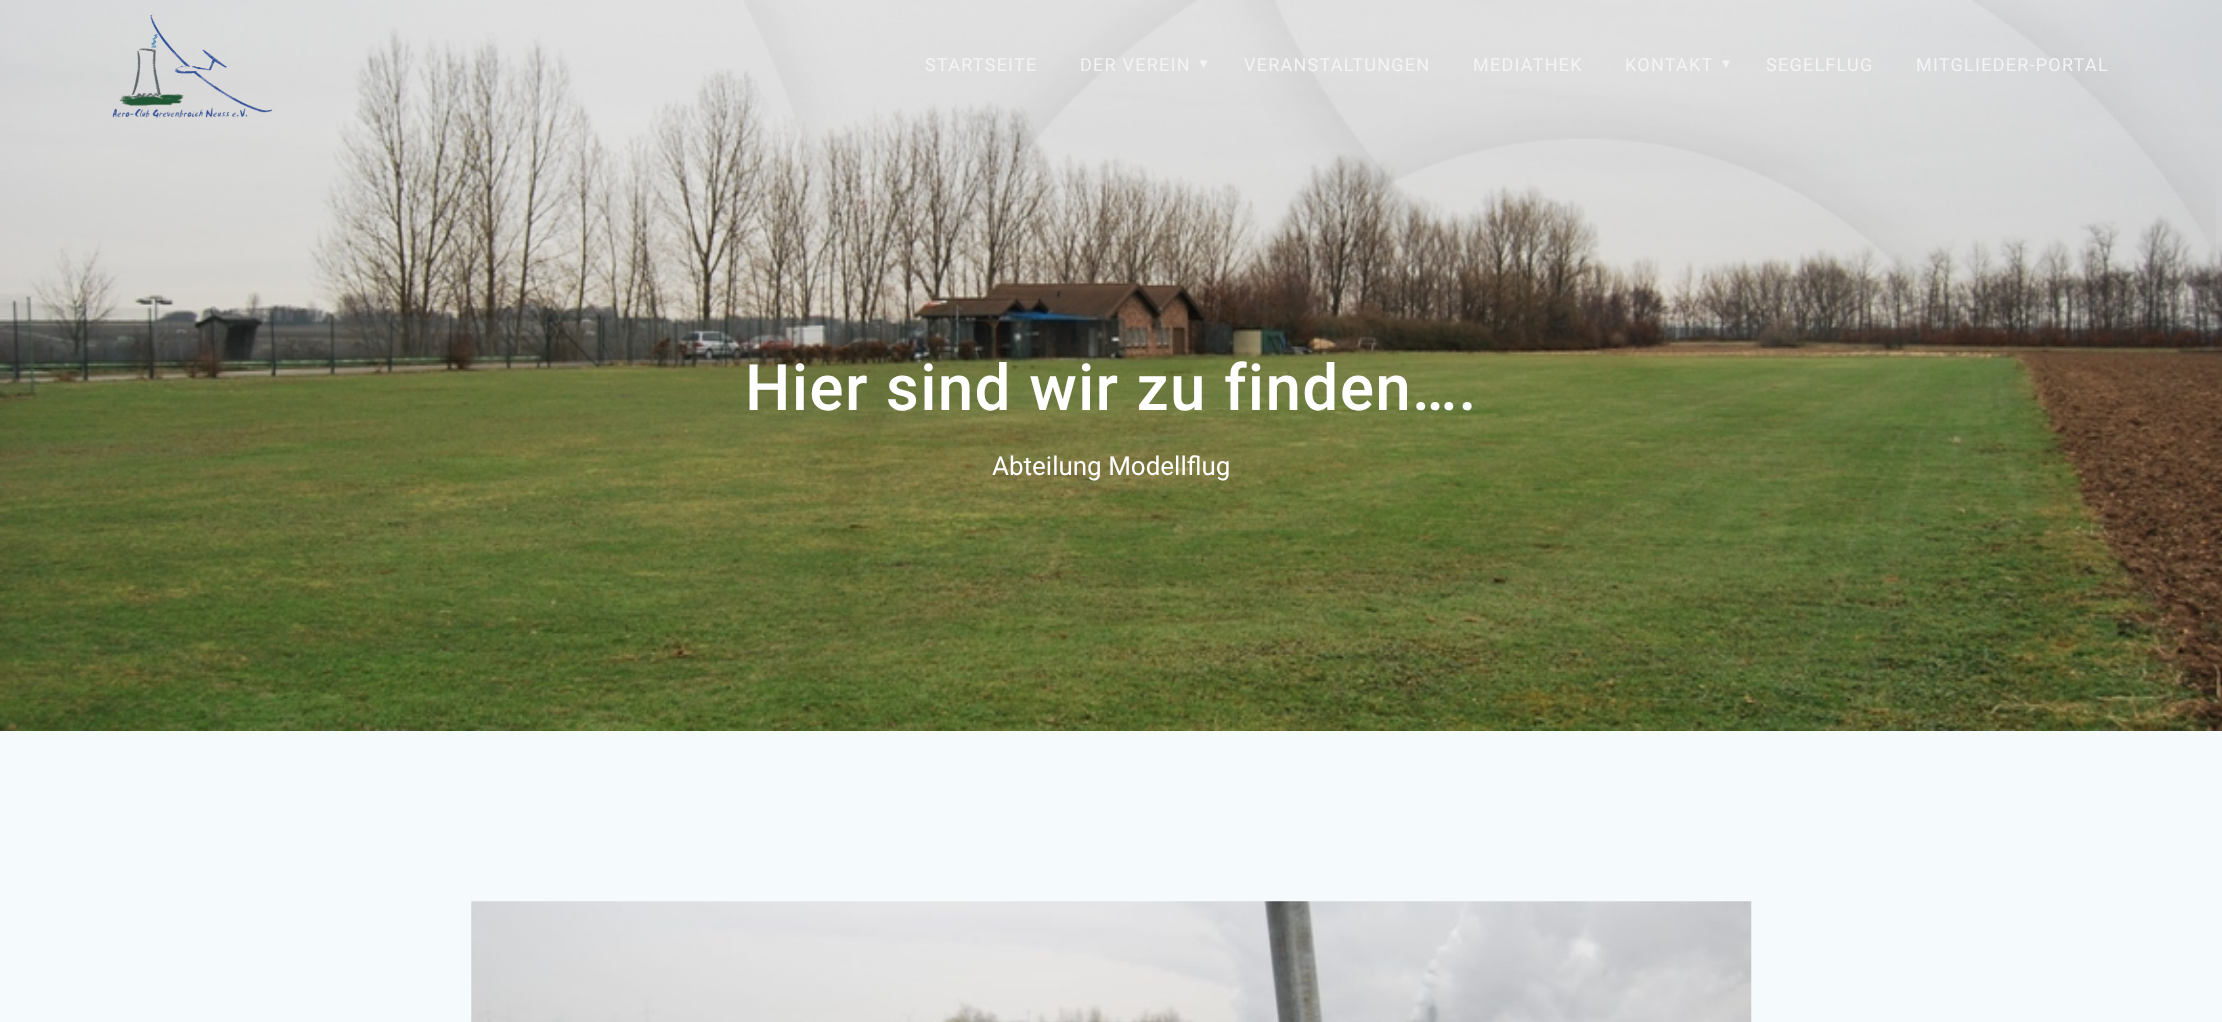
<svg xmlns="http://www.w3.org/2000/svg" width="2222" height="1022">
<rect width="100%" height="100%" fill="#fff"/>
<image x="0" y="0" width="2222" height="731" href="media/2.png"/>
<image x="112" y="14" width="161" height="104" href="media/1.png"/>
<image x="744" y="0" width="1472" height="731" href="media/3.png"/>
<text x="925" y="71" style="font-family:Roboto;font-size:18px;letter-spacing:1.25px;fill:#f4f4f4">STARTSEITE</text>
<text x="1080" y="71" style="font-family:Roboto;font-size:18px;letter-spacing:1.25px;fill:#f4f4f4">DER VEREIN</text>
<path d="M1199.5 60.5l4 7.5l4-7.5z" fill="#f2f2f2"/>
<text x="1244" y="71" style="font-family:Roboto;font-size:18px;letter-spacing:1.25px;fill:#f4f4f4">VERANSTALTUNGEN</text>
<text x="1473" y="71" style="font-family:Roboto;font-size:18px;letter-spacing:1.25px;fill:#f4f4f4">MEDIATHEK</text>
<text x="1625" y="71" style="font-family:Roboto;font-size:18px;letter-spacing:1.25px;fill:#f4f4f4">KONTAKT</text>
<path d="M1722 60.5l4 7.5l4-7.5z" fill="#f2f2f2"/>
<text x="1766" y="71" style="font-family:Roboto;font-size:18px;letter-spacing:1.25px;fill:#f4f4f4">SEGELFLUG</text>
<text x="1916" y="71" style="font-family:Roboto;font-size:18px;letter-spacing:1.25px;fill:#f4f4f4">MITGLIEDER-PORTAL</text>
<text x="745" y="410" style="font-family:Roboto;font-size:64px;font-weight:500;letter-spacing:1.25px;fill:#fff">Hier sind wir zu finden….</text>
<text x="992" y="475" style="font-family:Roboto;font-size:26px;fill:#fff">Abteilung Modellflug</text>
<rect y="731" width="2222" height="291" fill="#f5fafd"/>
<image x="471" y="901" width="1281" height="121" href="media/4.png"/>
</svg>
